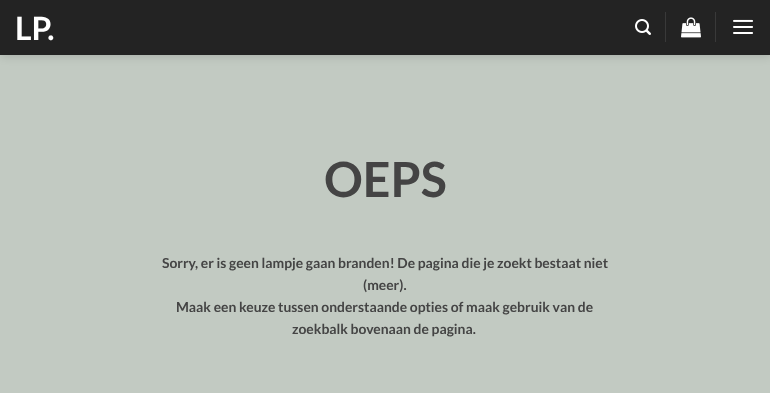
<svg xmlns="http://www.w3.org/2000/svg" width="770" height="393">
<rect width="100%" height="100%" fill="#c2cac2"/>
<rect x="1" y="1" width="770" height="55" fill="#00000026" filter="blur(5px)"/>
<rect width="770" height="55" fill="#232323"/>
<text x="15" y="40" style="font-family:Lato;font-size:32px;font-weight:bold;fill:#fff">LP.</text>
<image x="635" y="19" width="16" height="16" href="media/1.png"/>
<rect x="665" y="12" width="1" height="30" fill="#393939"/>
<image x="681" y="17" width="20" height="21" href="media/2.png"/>
<rect x="715" y="12" width="1" height="30" fill="#393939"/>
<image x="733" y="19" width="20" height="15" href="media/3.png"/>
<text x="324" y="197" style="font-family:Lato;font-size:48.5px;font-weight:bold;fill:#444">OEPS</text>
<text x="162" y="268" style="font-family:Lato;font-size:13.85px;font-weight:bold;fill:#444">Sorry, er is geen lampje gaan branden! De pagina die je zoekt bestaat niet</text>
<text x="363" y="290" style="font-family:Lato;font-size:13.85px;font-weight:bold;fill:#444">(meer).</text>
<text x="176" y="312" style="font-family:Lato;font-size:13.85px;font-weight:bold;fill:#444">Maak een keuze tussen onderstaande opties of maak gebruik van de</text>
<text x="292" y="334" style="font-family:Lato;font-size:13.85px;font-weight:bold;fill:#444">zoekbalk bovenaan de pagina.</text>
</svg>
